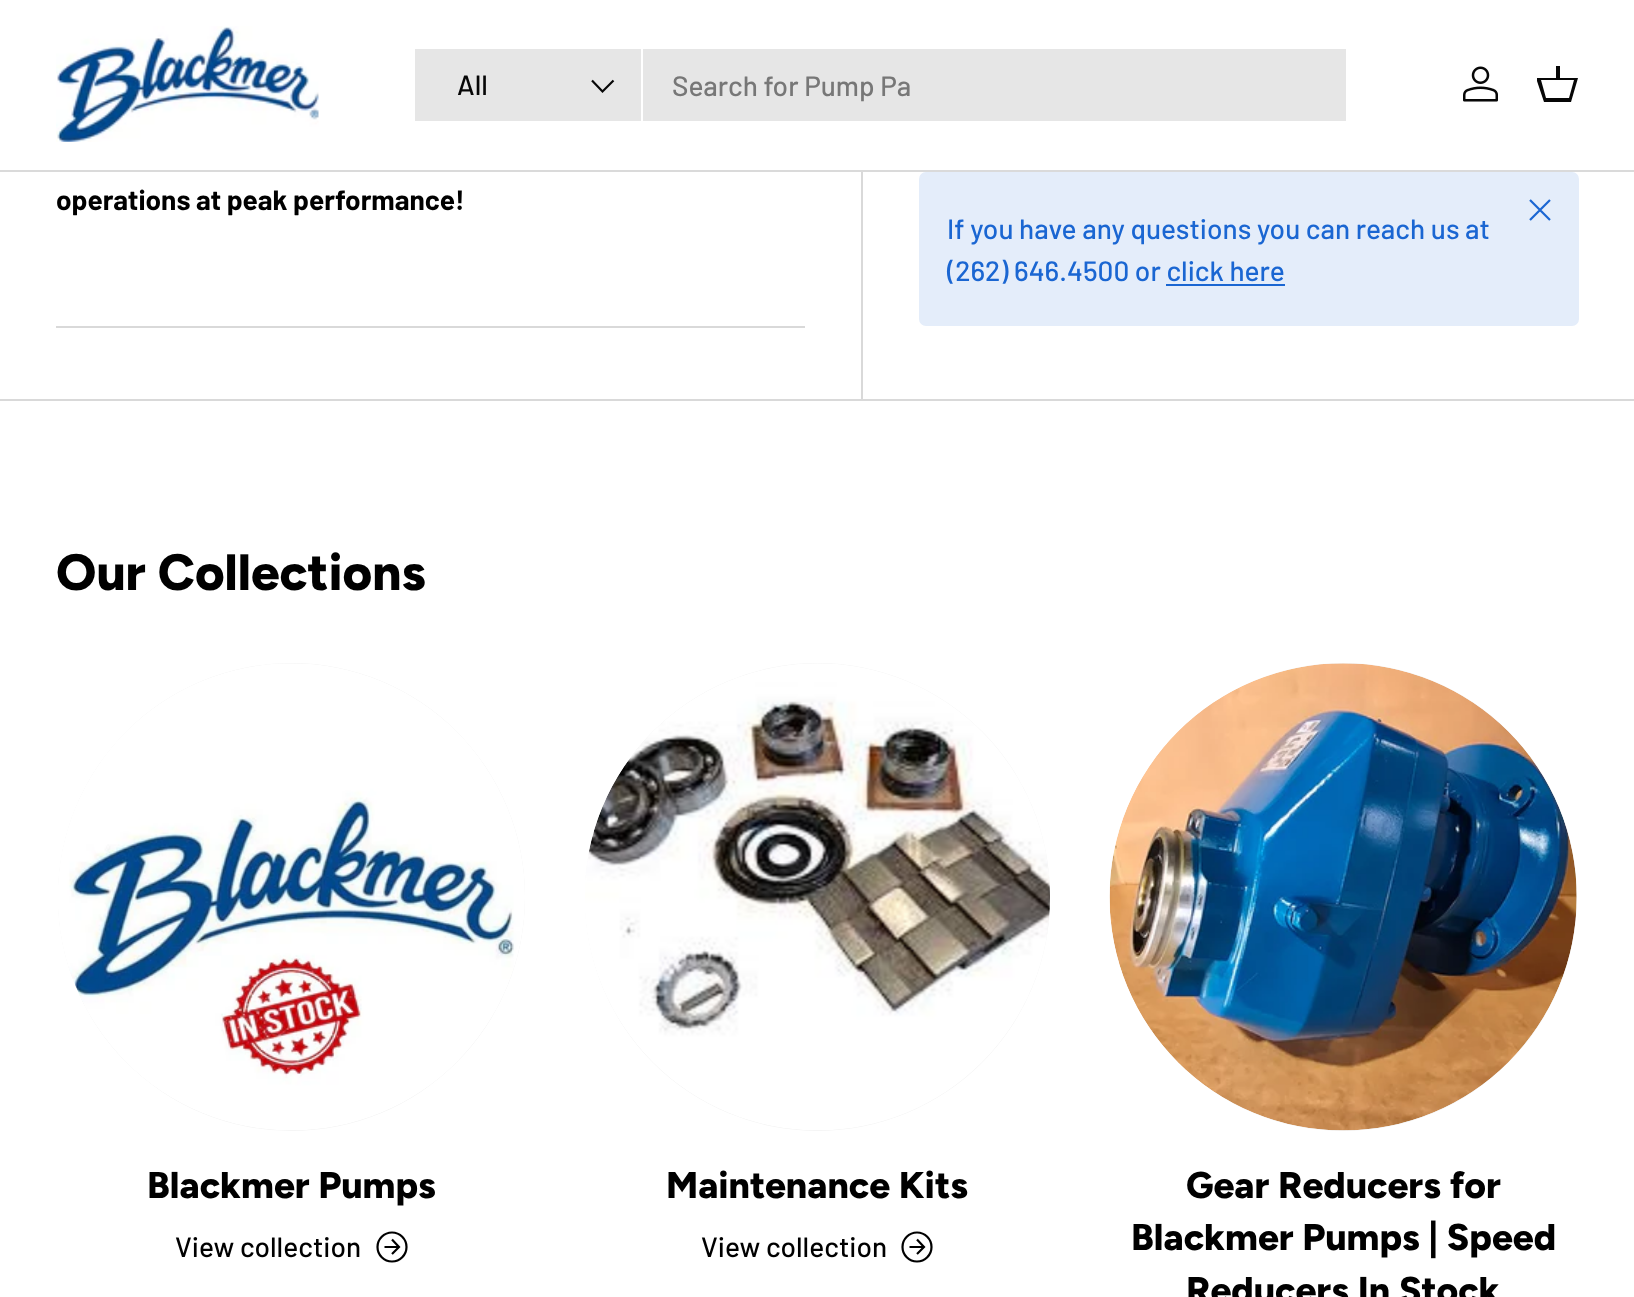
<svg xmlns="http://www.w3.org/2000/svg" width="1634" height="1297">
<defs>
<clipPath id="clip1"><rect x="1537" y="63" width="42" height="42"/></clipPath>
</defs>
<rect width="100%" height="100%" fill="#fff"/>
<rect y="170" width="1634" height="2" fill="#dadada"/>
<image x="56" y="26" width="263" height="116" href="media/1.png"/>
<rect x="415" y="49" width="931" height="72" fill="#e6e6e6"/>
<rect x="641" y="49" width="2" height="72" fill="#fff"/>
<text x="457" y="95" style="font-family:Barlow;font-size:28px;font-weight:500;fill:#070707">All</text>
<path d="M613.5 80.5l-11 11l-10.5-11" fill="none" stroke="#070707" stroke-width="2.2"/>
<text x="672" y="96" style="font-family:Barlow;font-size:28px;font-weight:500;fill:#777">Search for Pump Pa</text>
<image x="1463" y="66" width="35" height="36" href="media/2.png"/>
<g clip-path="url(#clip1)">
<path d="M1556 78v-12h4v12h18l-7 24h-27l-8-24zm-15 2l5 18h23l5-18z" fill="#070707"/>
</g>
<rect x="56" y="326" width="749" height="2" fill="#d9d9d9"/>
<text x="56" y="210" style="font-family:Barlow;font-size:28px;font-weight:bold;fill:#000">operations at peak performance!</text>
<rect x="861" y="172" width="2" height="227" fill="#d9d9d9"/>
<rect x="919" y="172" width="660" height="154" rx="7" fill="#e4edfa"/>
<path d="M1530 220l20-20m-20 0l20 20" fill="none" stroke="#1a66d2" stroke-width="2.2" stroke-linejoin="round"/>
<text x="947" y="239" style="font-family:Barlow;font-size:28px;font-weight:500;fill:#1a66d2">If you have any questions you can reach us at</text>
<text x="947" y="281" style="font-family:Barlow;font-size:28px;font-weight:500;fill:#1a66d2">(262) 646.4500 or click here</text>
<rect x="1166" y="284" width="119" height="2" fill="#1a66d2"/>
<rect y="399" width="1634" height="2" fill="#d9d9d9"/>
<text x="56" y="590" style="font-family:Figtree;font-size:51px;font-weight:800;fill:#000">Our Collections</text>
<rect x="58" y="663" width="467" height="468" rx="233.5" fill="#f5f5f5"/>
<image x="58" y="663" width="467" height="467" href="media/3.png"/>
<text x="147" y="1198" style="font-family:Figtree;font-size:37.3px;font-weight:800;fill:#000">Blackmer Pumps</text>
<text x="175" y="1257" style="font-family:Barlow;font-size:28px;font-weight:500;fill:#000">View collection</text>
<path d="M384.5 1247h14m-6.5-7.5l7 7.5l-7 7" fill="none" stroke="#000" stroke-width="2.2"/>
<circle cx="392" cy="1247" r="14.5" fill="none" stroke="#000" stroke-width="2.2"/>
<rect x="585" y="663" width="465" height="468" rx="232.5" fill="#f5f5f5"/>
<image x="585" y="663" width="465" height="467" href="media/4.png"/>
<text x="666" y="1198" style="font-family:Figtree;font-size:37.3px;font-weight:800;fill:#000">Maintenance Kits</text>
<text x="701" y="1257" style="font-family:Barlow;font-size:28px;font-weight:500;fill:#000">View collection</text>
<path d="M909.5 1247h14m-6.5-7.5l7 7.5l-7 7" fill="none" stroke="#000" stroke-width="2.2"/>
<circle cx="917" cy="1247" r="14.5" fill="none" stroke="#000" stroke-width="2.2"/>
<rect x="1110" y="663" width="467" height="468" rx="233.5" fill="#f5f5f5"/>
<image x="1109" y="663" width="468" height="468" href="media/5.png"/>
<text x="1186" y="1198" style="font-family:Figtree;font-size:37.3px;font-weight:800;fill:#000">Gear Reducers for</text>
<text x="1131" y="1250" style="font-family:Figtree;font-size:37.3px;font-weight:800;fill:#000">Blackmer Pumps | Speed</text>
<text x="1186" y="1303" style="font-family:Figtree;font-size:37.3px;font-weight:800;fill:#000">Reducers In Stock</text>
</svg>
